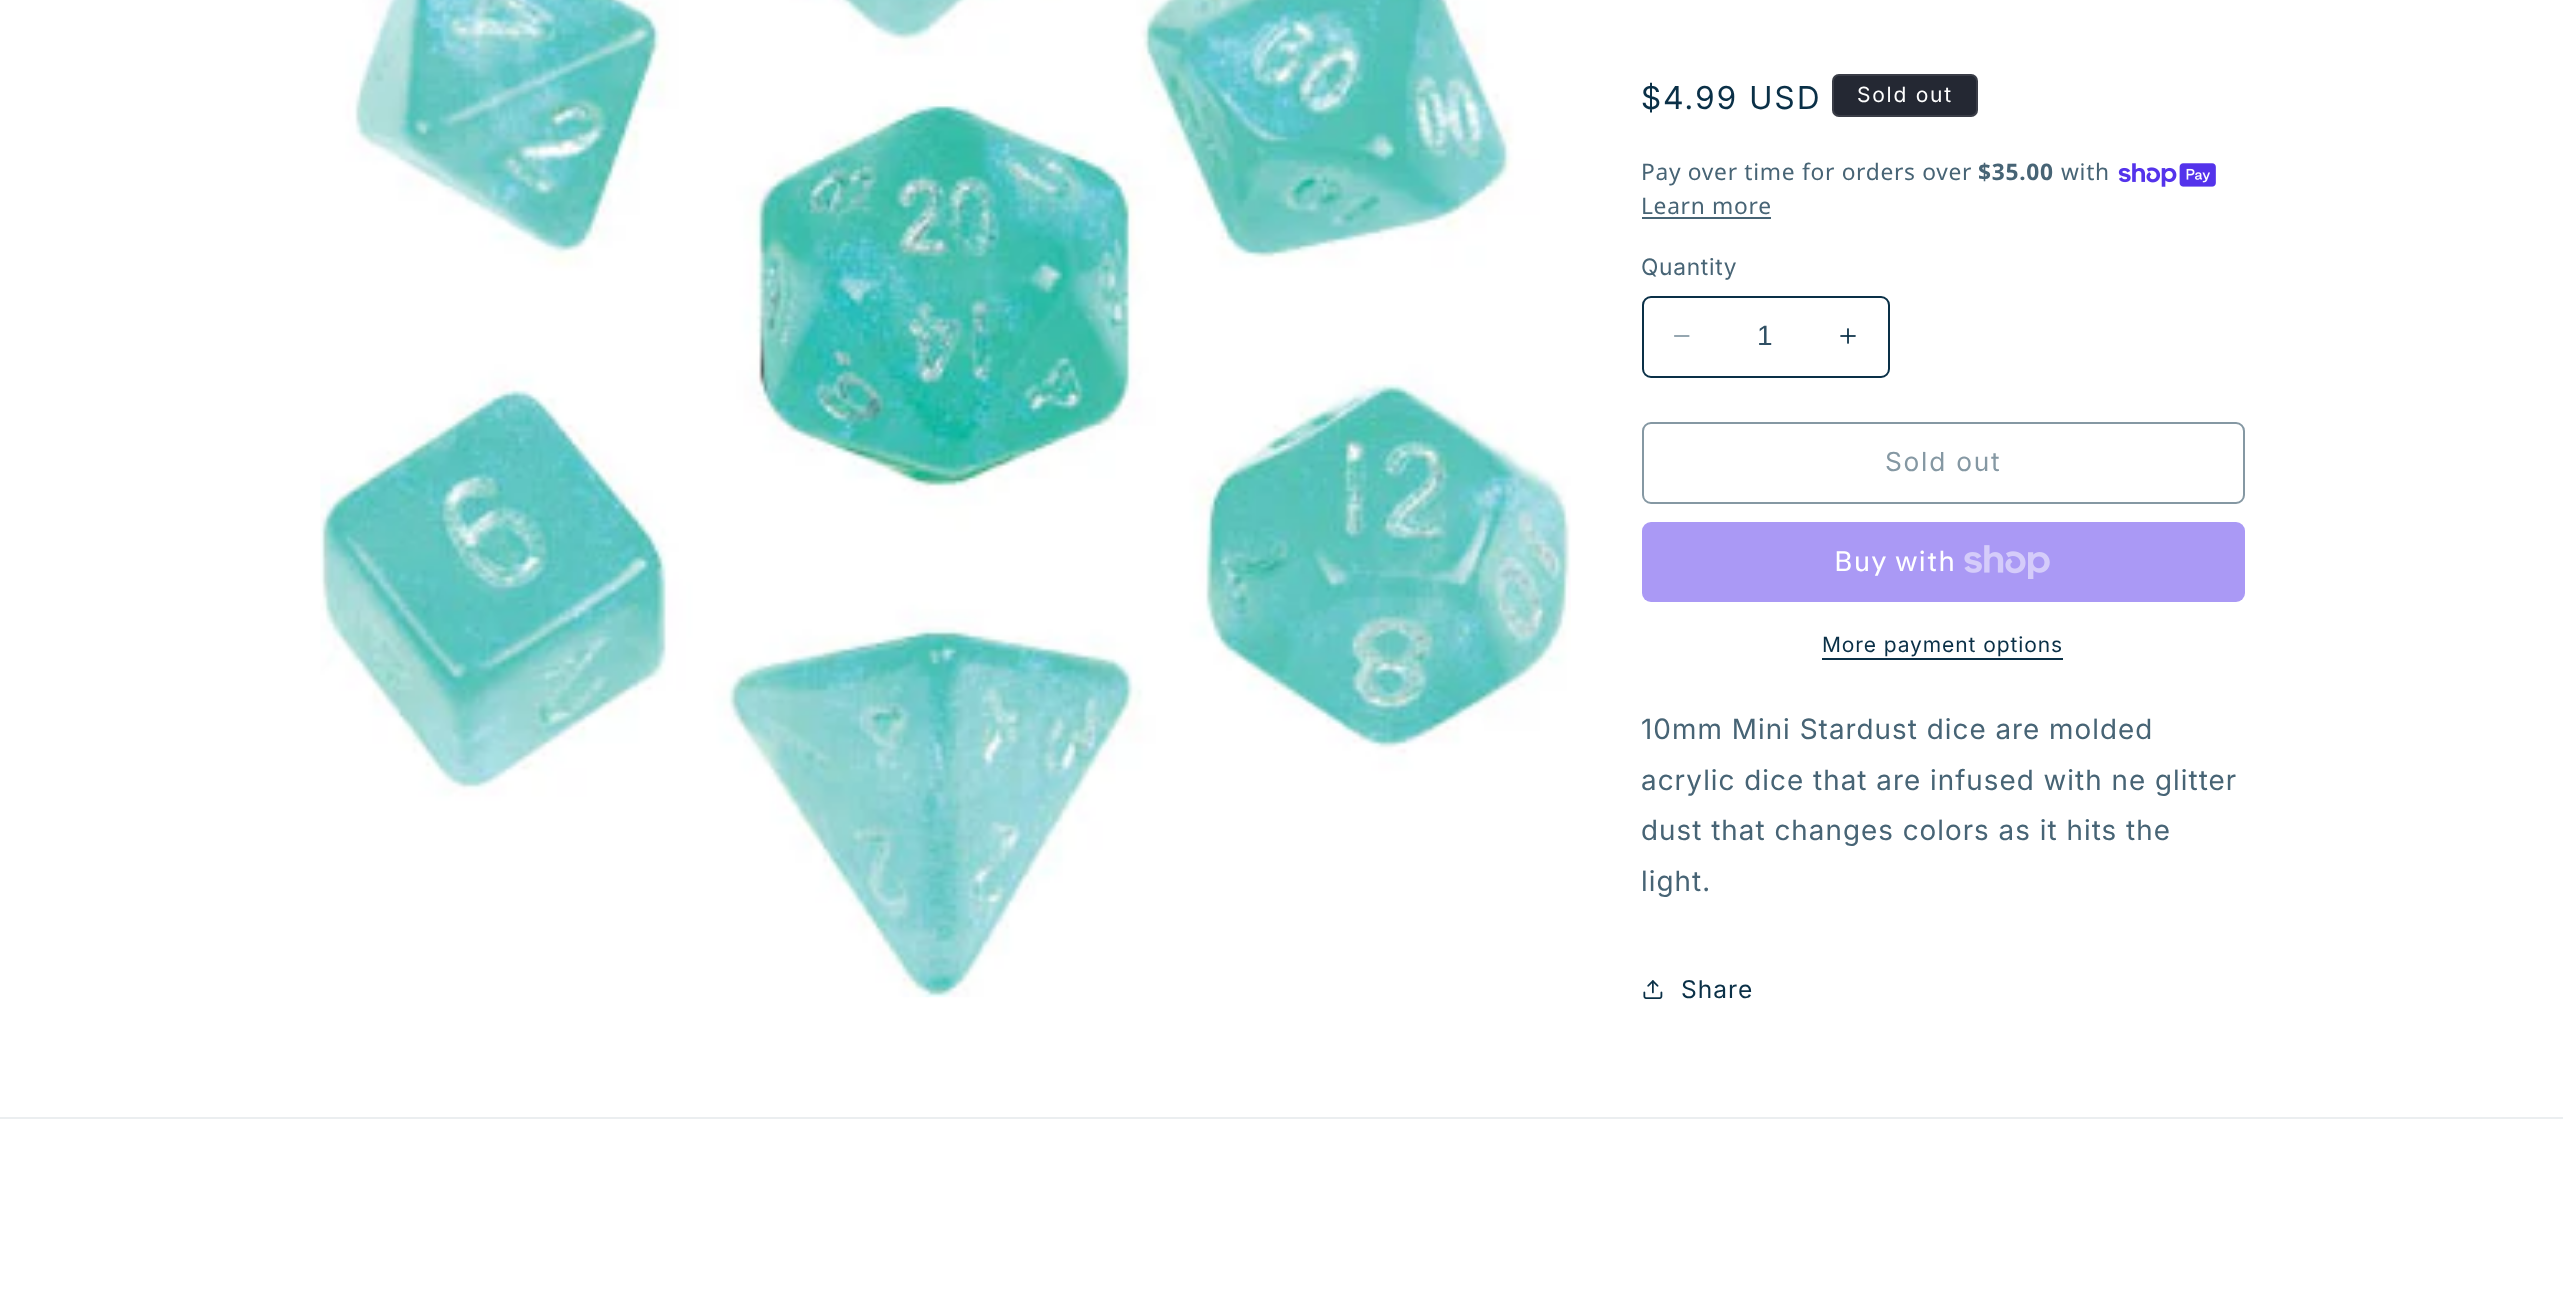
<svg xmlns="http://www.w3.org/2000/svg" width="2563" height="1314">
<rect width="100%" height="100%" fill="#fff"/>
<image x="320" y="0" width="1251" height="998" href="media/1.png"/>
<text x="1641" y="109" style="font-family:Inter;font-size:31.5px;letter-spacing:2.25px;fill:#0a3047">$4.99 USD</text>
<rect x="1832" y="74" width="146" height="43" rx="7" fill="#242833"/>
<rect x="1833" y="75" width="144" height="41" rx="6" fill="none" stroke="#ffffff1a" stroke-width="2"/>
<text x="1857" y="102" style="font-family:'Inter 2';font-size:21px;letter-spacing:1.75px;fill:#fff">Sold out</text>
<text x="1641" y="180" style="font-family:Noto Sans;font-size:22.75px;letter-spacing:0.7px;fill:#476475">Pay over time for orders over</text>
<text x="1978" y="180" style="font-family:Noto Sans;font-size:22.75px;font-weight:bold;letter-spacing:0.7px;fill:#476475">$35.00</text>
<text x="2061" y="180" style="font-family:Noto Sans;font-size:22.75px;letter-spacing:0.7px;fill:#476475">with</text>
<image x="2118" y="163" width="98" height="24" href="media/2.png"/>
<text x="1641" y="214" style="font-family:Noto Sans;font-size:22.75px;letter-spacing:0.7px;fill:#476475">Learn more</text>
<rect x="1642" y="217" width="129" height="2" fill="#476475"/>
<text x="1641" y="275" style="font-family:'Inter 2';font-size:22.75px;letter-spacing:0.7px;fill:#476475">Quantity</text>
<image x="1674" y="335" width="16" height="2" href="media/3.png"/>
<image x="1840" y="328" width="16" height="16" href="media/4.png"/>
<rect x="1643" y="297" width="246" height="80" rx="8" fill="none" stroke="#0a3047" stroke-width="2"/>
<text x="1757" y="345" style="font-family:Liberation Sans;font-size:28px;fill:#2f4f63">1</text>
<rect x="1643" y="423" width="601" height="80" rx="8" fill="none" stroke="#8598a3" stroke-width="2"/>
<text x="1885" y="471" style="font-family:'Inter 2';font-size:26.25px;letter-spacing:1.75px;fill:#8598a3">Sold out</text>
<rect x="1642" y="522" width="603" height="80" rx="9" fill="#aa99f5"/>
<text x="1834" y="571" style="font-family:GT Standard;font-size:28px;letter-spacing:1.05px;fill:#fff">Buy with</text>
<image x="1964" y="545" width="86" height="34" href="media/5.png"/>
<text x="1822" y="652" style="font-family:'Inter 2';font-size:21px;letter-spacing:0.9px;fill:#0a3047">More payment options</text>
<rect x="1822" y="658" width="241" height="2" fill="#0a3047"/>
<text x="1641" y="739" style="font-family:'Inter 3';font-size:28px;letter-spacing:1.05px;fill:#476475">10mm Mini Stardust dice are molded</text>
<text x="1641" y="790" style="font-family:'Inter 3';font-size:28px;letter-spacing:1.05px;fill:#476475">acrylic dice that are infused with ne glitter</text>
<text x="1641" y="840" style="font-family:'Inter 3';font-size:28px;letter-spacing:1.05px;fill:#476475">dust that changes colors as it hits the</text>
<text x="1641" y="891" style="font-family:'Inter 3';font-size:28px;letter-spacing:1.05px;fill:#476475">light.</text>
<image x="1643" y="980" width="20" height="19" href="media/6.png"/>
<text x="1681" y="998" style="font-family:'Inter 2';font-size:24.5px;letter-spacing:1.05px;fill:#0a3047">Share</text>
<rect y="1117" width="2563" height="2" fill="#ebeef0"/>
</svg>
